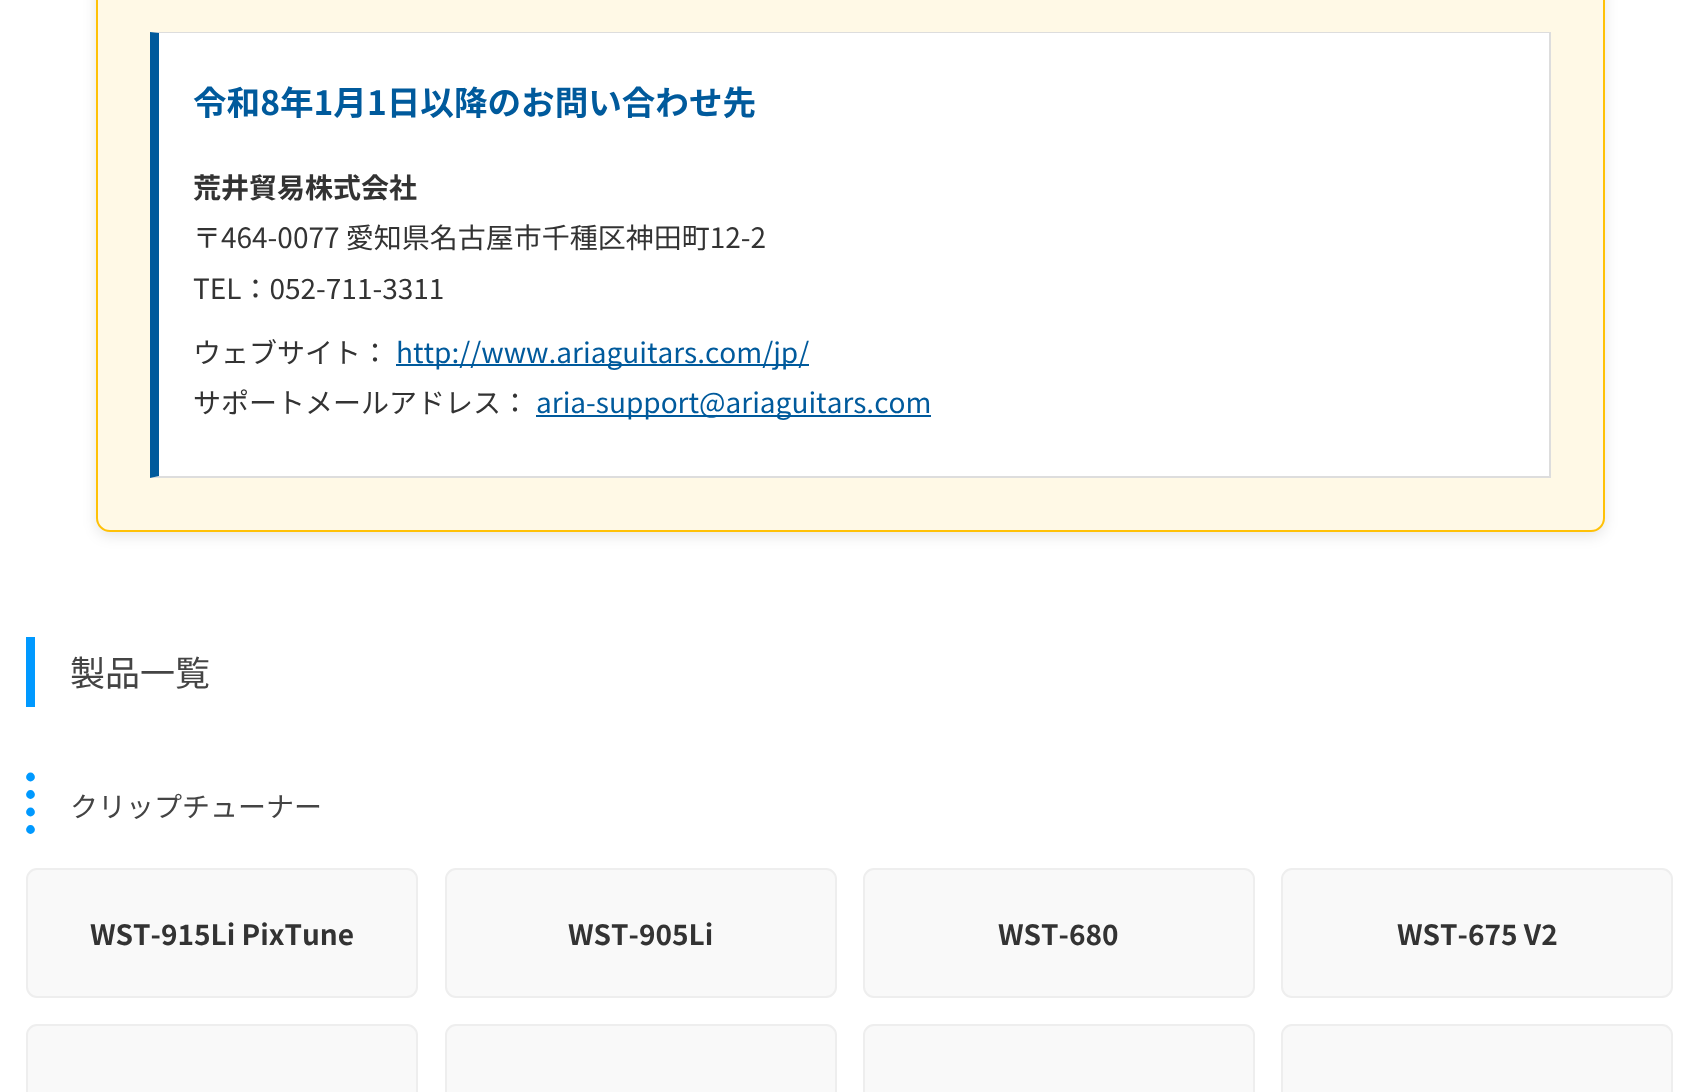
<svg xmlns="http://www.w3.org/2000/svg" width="1699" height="1092">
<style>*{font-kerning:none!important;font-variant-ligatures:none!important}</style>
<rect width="100%" height="100%" fill="#fff"/>
<rect x="96" y="-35" width="1509" height="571" rx="14" fill="#0000001a" filter="blur(7px)"/>
<rect x="97" y="-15" width="1507" height="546" rx="13" fill="#fff9e6" stroke="#ffc107" stroke-width="2"/>
<rect x="159" y="33" width="1390" height="443" fill="#fff"/>
<path d="M150 32h1400l-1 1h-1390z" fill="#ddd"/>
<rect x="1549" y="32" width="2" height="446" fill="#ddd"/>
<path d="M1550 478h-1400l9-2h1390z" fill="#ddd"/>
<path d="M150 478v-446l9 1v443z" fill="#005a9c"/>
<text x="193" y="115" style="font-family:Noto Sans JP;font-size:33.6px;font-weight:bold;fill:#005a9c">令和8年1月1日以降のお問い合わせ先</text>
<text x="193" y="198" style="font-family:Noto Sans JP;font-size:28px;font-weight:bold;fill:#333">荒井貿易株式会社</text>
<text x="193" y="248" style="font-family:Noto Sans JP;font-size:28px;fill:#333">〒464-0077 愛知県名古屋市千種区神田町12-2</text>
<text x="193" y="299" style="font-family:Noto Sans JP;font-size:28px;fill:#333">TEL：052-711-3311</text>
<text x="193" y="363" style="font-family:Noto Sans JP;font-size:28px;fill:#333">ウェブサイト：</text>
<rect x="396" y="364" width="413" height="2" fill="#005a9c"/>
<text x="396" y="363" style="font-family:Noto Sans JP;font-size:28px;fill:#005a9c">http://www.ariaguitars.com/jp/</text>
<text x="193" y="413" style="font-family:Noto Sans JP;font-size:28px;fill:#333">サポートメールアドレス：</text>
<rect x="536" y="415" width="395" height="2" fill="#005a9c"/>
<text x="536" y="413" style="font-family:Noto Sans JP;font-size:28px;fill:#005a9c">aria-support@ariaguitars.com</text>
<rect x="26" y="637" width="9" height="70" fill="#09f"/>
<text x="70" y="686" style="font-family:Noto Sans JP;font-size:35px;fill:#444">製品一覧</text>
<path d="M30.5 777v56" fill="none" stroke="#09f" stroke-width="8.8" stroke-linecap="round" stroke-dasharray="0 17.5"/>
<text x="70" y="817" style="font-family:Noto Sans JP;font-size:28px;fill:#444">クリップチューナー</text>
<rect x="27" y="869" width="390" height="128" rx="10" fill="#f9f9f9" stroke="#eee" stroke-width="2"/>
<text x="90" y="945" style="font-family:Noto Sans JP;font-size:28px;font-weight:bold;fill:#333">WST-915Li PixTune</text>
<rect x="446" y="869" width="390" height="128" rx="10" fill="#f9f9f9" stroke="#eee" stroke-width="2"/>
<text x="568" y="945" style="font-family:Noto Sans JP;font-size:28px;font-weight:bold;fill:#333">WST-905Li</text>
<rect x="864" y="869" width="390" height="128" rx="10" fill="#f9f9f9" stroke="#eee" stroke-width="2"/>
<text x="998" y="945" style="font-family:Noto Sans JP;font-size:28px;font-weight:bold;fill:#333">WST-680</text>
<rect x="1282" y="869" width="390" height="128" rx="10" fill="#f9f9f9" stroke="#eee" stroke-width="2"/>
<text x="1397" y="945" style="font-family:Noto Sans JP;font-size:28px;font-weight:bold;fill:#333">WST-675 V2</text>
<rect x="27" y="1025" width="390" height="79" rx="10" fill="#f9f9f9" stroke="#eee" stroke-width="2"/>
<rect x="446" y="1025" width="390" height="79" rx="10" fill="#f9f9f9" stroke="#eee" stroke-width="2"/>
<rect x="864" y="1025" width="390" height="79" rx="10" fill="#f9f9f9" stroke="#eee" stroke-width="2"/>
<rect x="1282" y="1025" width="390" height="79" rx="10" fill="#f9f9f9" stroke="#eee" stroke-width="2"/>
</svg>
